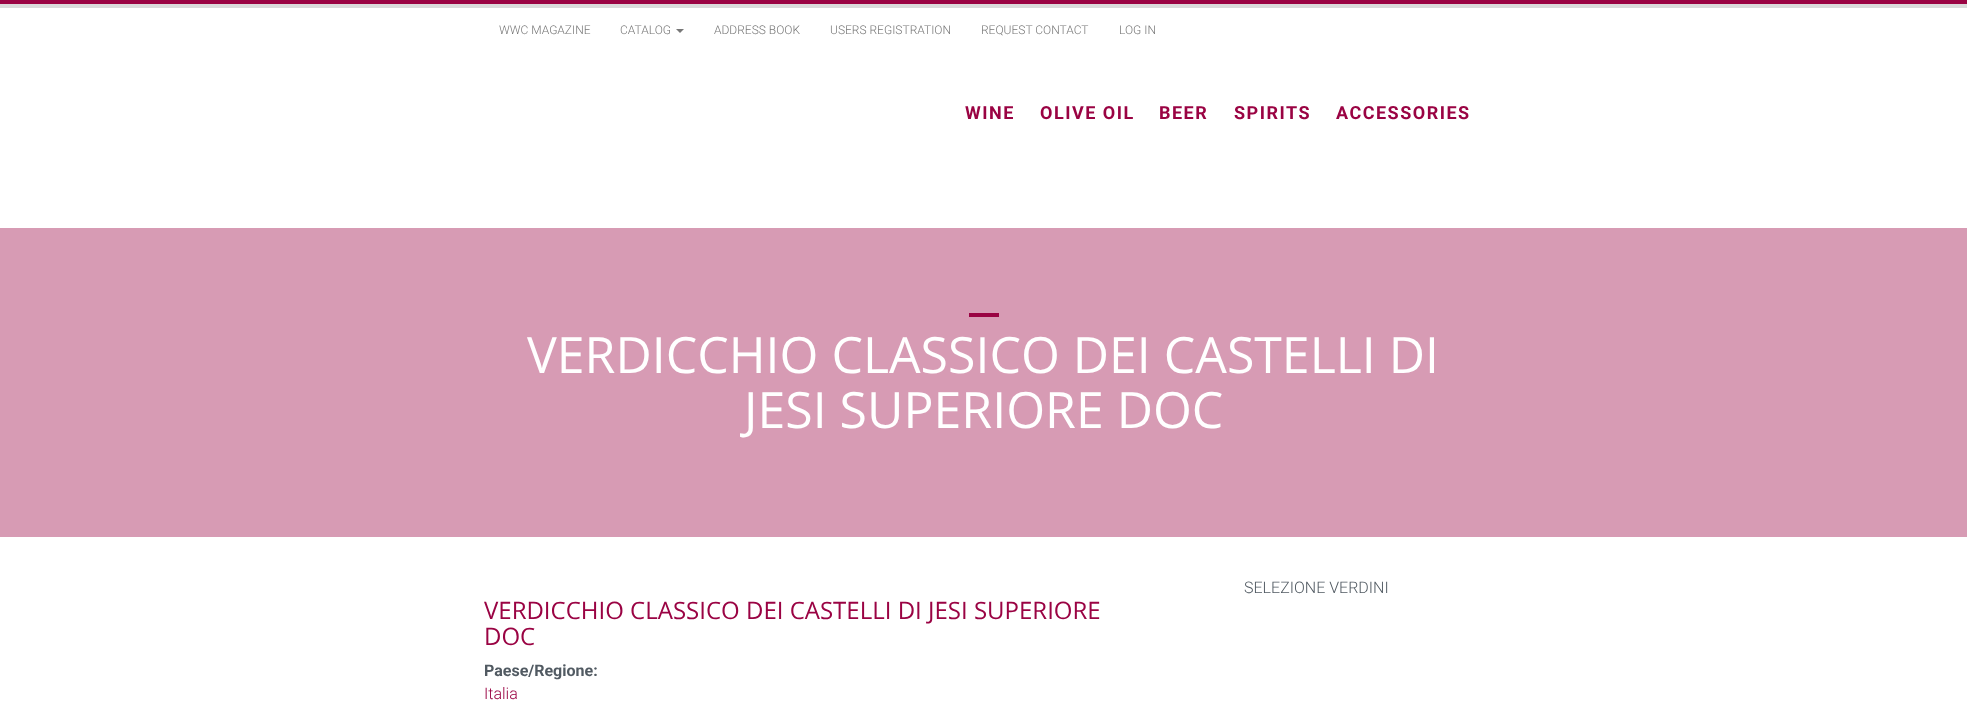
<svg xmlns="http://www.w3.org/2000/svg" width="1967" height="704">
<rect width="100%" height="100%" fill="#fff"/>
<rect width="1967" height="4" fill="#9a0343"/>
<rect y="4" width="1967" height="4" fill="#dadada"/>
<text x="499" y="34" style="font-family:Roboto;font-size:12px;font-weight:300;fill:#777">WWC MAGAZINE</text>
<text x="620" y="34" style="font-family:Roboto;font-size:12px;font-weight:300;fill:#777">CATALOG</text>
<path d="M676 29h8l-4 4z" fill="#777"/>
<text x="714" y="34" style="font-family:Roboto;font-size:12px;font-weight:300;fill:#777">ADDRESS BOOK</text>
<text x="830" y="34" style="font-family:Roboto;font-size:12px;font-weight:300;fill:#777">USERS REGISTRATION</text>
<text x="981" y="34" style="font-family:Roboto;font-size:12px;font-weight:300;fill:#777">REQUEST CONTACT</text>
<text x="1119" y="34" style="font-family:Roboto;font-size:12px;font-weight:300;fill:#777">LOG IN</text>
<text x="965" y="119" style="font-family:Roboto;font-size:18px;font-weight:bold;letter-spacing:1.5px;fill:#9a0343">WINE</text>
<text x="1040" y="119" style="font-family:Roboto;font-size:18px;font-weight:bold;letter-spacing:1.5px;fill:#9a0343">OLIVE OIL</text>
<text x="1159" y="119" style="font-family:Roboto;font-size:18px;font-weight:bold;letter-spacing:1.5px;fill:#9a0343">BEER</text>
<text x="1234" y="119" style="font-family:Roboto;font-size:18px;font-weight:bold;letter-spacing:1.5px;fill:#9a0343">SPIRITS</text>
<text x="1336" y="119" style="font-family:Roboto;font-size:18px;font-weight:bold;letter-spacing:1.5px;fill:#9a0343">ACCESSORIES</text>
<rect y="228" width="1967" height="309" fill="#d79bb4"/>
<rect x="969" y="313" width="30" height="4" fill="#9a0343"/>
<text x="527" y="373" style="font-family:Open Sans;font-size:50px;fill:#fff">VERDICCHIO CLASSICO DEI CASTELLI DI</text>
<text x="744" y="428" style="font-family:Open Sans;font-size:50px;fill:#fff">JESI SUPERIORE DOC</text>
<text x="1244" y="593" style="font-family:Roboto;font-size:16px;font-weight:300;fill:#515a62">SELEZIONE VERDINI</text>
<text x="484" y="619" style="font-family:Open Sans;font-size:24px;fill:#9a0343">VERDICCHIO CLASSICO DEI CASTELLI DI JESI SUPERIORE</text>
<text x="484" y="645" style="font-family:Open Sans;font-size:24px;fill:#9a0343">DOC</text>
<text x="484" y="676" style="font-family:Roboto;font-size:16px;font-weight:bold;fill:#515a62">Paese/Regione:</text>
<text x="484" y="699" style="font-family:Roboto;font-size:16px;font-weight:300;fill:#9a0343">Italia</text>
</svg>
